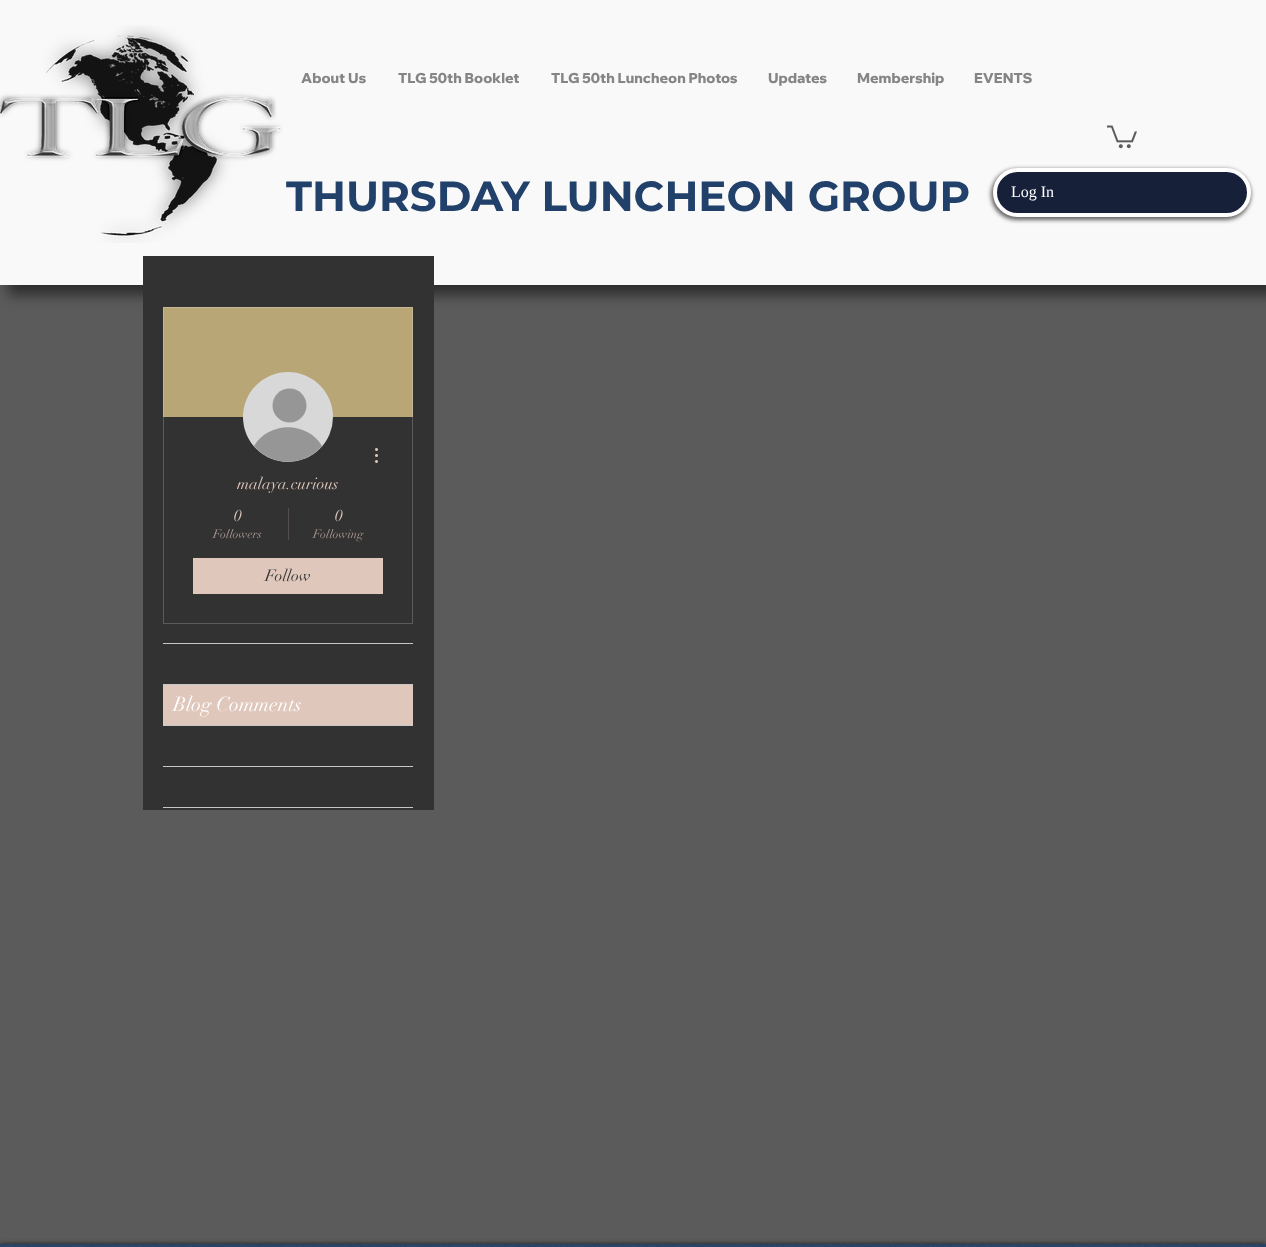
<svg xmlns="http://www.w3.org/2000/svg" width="1266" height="1247">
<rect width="100%" height="100%" fill="#5b5b5b"/>
<rect x="8" y="6" width="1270" height="289" fill="#00000082" filter="blur(6.5px)"/>
<rect width="1266" height="285" fill="#f9f9f9"/>
<image x="0" y="25" width="283" height="218" href="media/1.png"/>
<text x="301" y="83" style="font-family:Wix Madefor Display;font-size:14px;font-weight:800;fill:#858585">About Us</text>
<text x="398" y="83" style="font-family:Wix Madefor Display;font-size:14px;font-weight:800;fill:#858585">TLG 50th Booklet</text>
<text x="551" y="83" style="font-family:Wix Madefor Display;font-size:14px;font-weight:800;fill:#858585">TLG 50th Luncheon Photos</text>
<text x="768" y="83" style="font-family:Wix Madefor Display;font-size:14px;font-weight:800;fill:#858585">Updates</text>
<text x="857" y="83" style="font-family:Wix Madefor Display;font-size:14px;font-weight:800;fill:#858585">Membership</text>
<text x="974" y="83" style="font-family:Wix Madefor Display;font-size:14px;font-weight:800;fill:#858585">EVENTS</text>
<image x="1107" y="125" width="30" height="24" href="media/2.png"/>
<text x="286" y="211" style="font-family:Montserrat;font-size:42px;font-weight:bold;fill:#21406a">THURSDAY LUNCHEON GROUP</text>
<rect x="991" y="169" width="260" height="51" rx="25.5" fill="#00000099" filter="blur(2px)"/>
<rect x="995" y="170" width="254" height="45" rx="22.5" fill="#172039" stroke="#fff" stroke-width="4"/>
<text x="1011" y="197" style="font-family:Liberation Serif;font-size:16px;fill:#fff">Log In</text>
<rect x="143" y="256" width="291" height="554" fill="#323232"/>
<rect x="163" y="307" width="250" height="110" fill="#b8a677"/>
<rect x="163.5" y="307.5" width="249" height="316" fill="none" stroke="#ffffff33"/>
<circle cx="288" cy="417" r="45" fill="#d8d8d8"/>
<circle cx="289.5" cy="405.5" r="17" fill="#969696"/>
<path d="M322 446c-18 21-50 21-68 0c15-25 53-25 68 0z" fill="#969696"/>
<image x="375" y="448" width="3" height="15" href="media/3.png"/>
<text x="237" y="489" style="font-family:didot;font-size:16px;fill:#e0c7bc">malaya.curious</text>
<text x="234" y="521" style="font-family:didot;font-size:16px;fill:#e0c7bc">0</text>
<text x="213" y="538" style="font-family:didot;font-size:12px;fill:#ac9a93">Followers</text>
<rect x="288" y="508" width="1" height="32" fill="#55504e"/>
<text x="335" y="521" style="font-family:didot;font-size:16px;fill:#e0c7bc">0</text>
<text x="313" y="538" style="font-family:didot;font-size:12px;fill:#ac9a93">Following</text>
<rect x="193" y="558" width="190" height="36" fill="#e0c7bc"/>
<text x="265" y="581" style="font-family:didot;font-size:16px;fill:#323232">Follow</text>
<rect x="163" y="643" width="250" height="1" fill="#c7c7c7"/>
<rect x="163" y="807" width="250" height="1" fill="#c7c7c7"/>
<rect x="163" y="684" width="250" height="1" fill="#c7c7c7"/>
<rect x="163" y="725" width="250" height="1" fill="#c7c7c7"/>
<rect x="163" y="685" width="250" height="40" fill="#e0c7bc"/>
<text x="173" y="711" style="font-family:didot;font-size:20px;fill:#fff">Blog Comments</text>
<rect x="163" y="766" width="250" height="1" fill="#c7c7c7"/>
<rect y="1244" width="1266" height="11" fill="#000000b3" filter="blur(2.5px)"/>
<rect y="1244" width="1266" height="3" fill="#2a4468"/>
<image x="0" y="1244" width="1264" height="3" href="media/4.png"/>
</svg>
